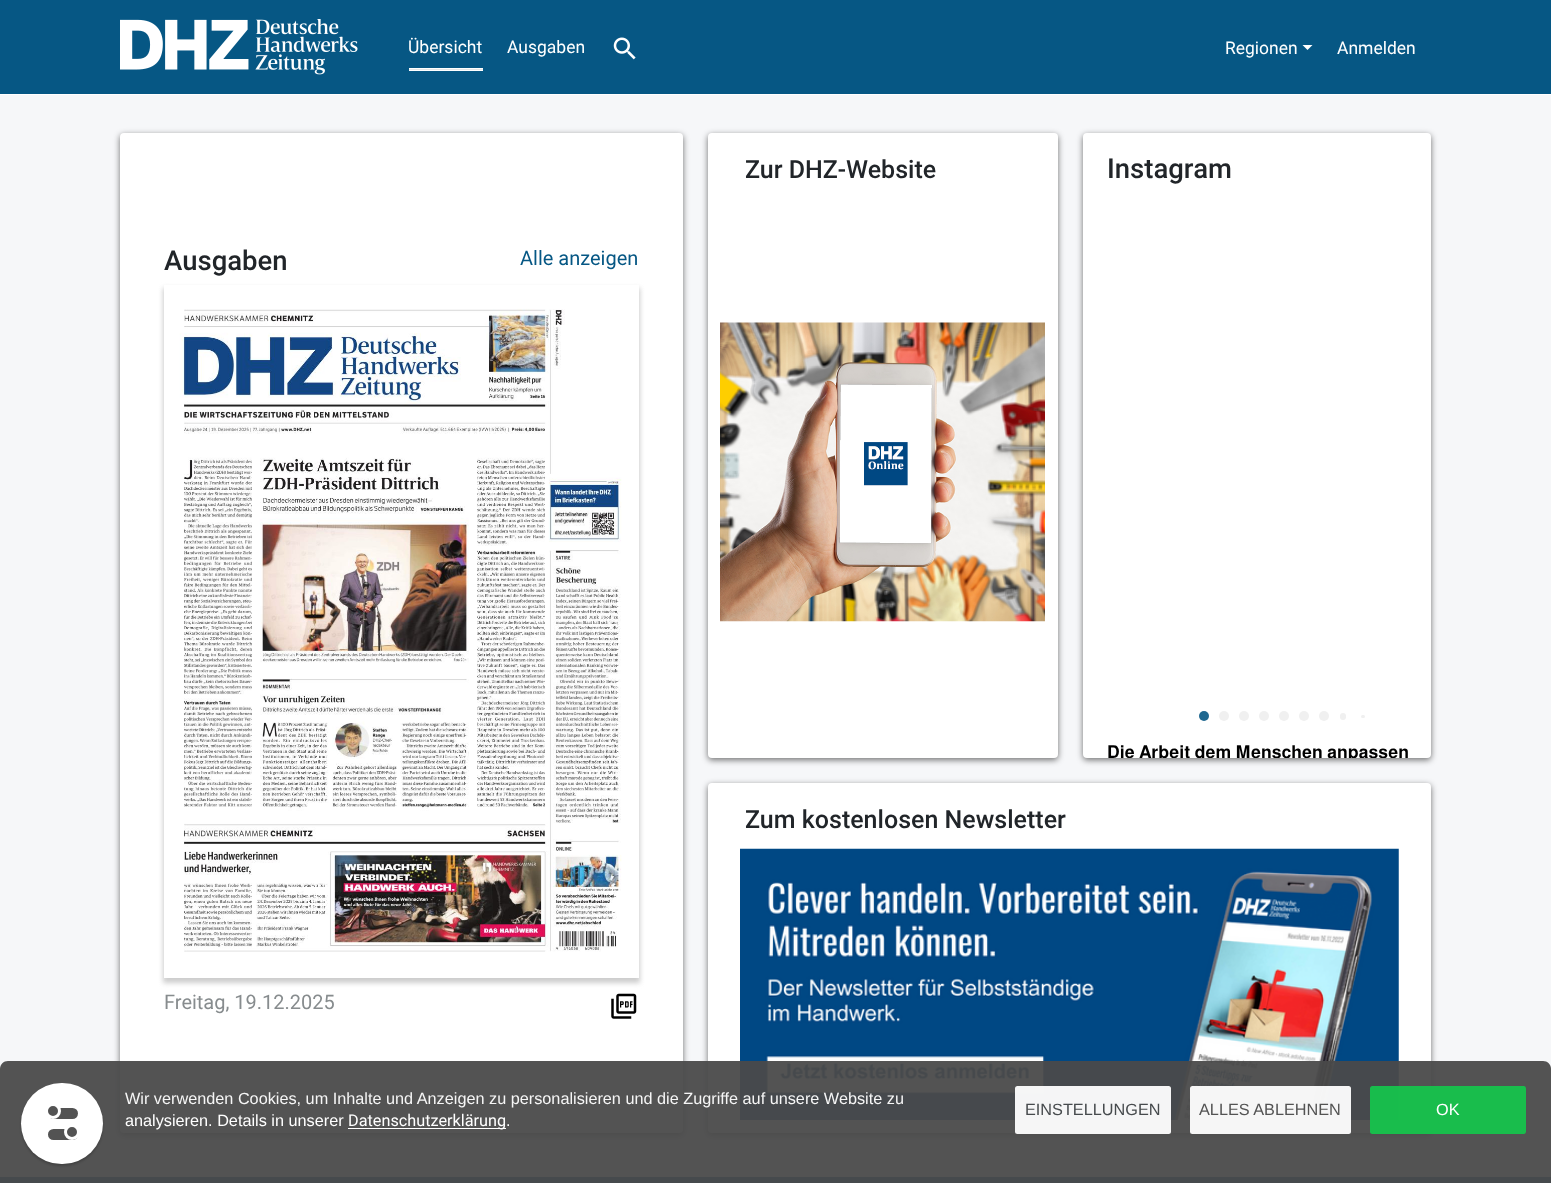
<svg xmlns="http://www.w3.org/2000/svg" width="1551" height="1183">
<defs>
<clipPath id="clip1"><rect x="1083" y="133" width="348" height="625" rx="4"/></clipPath>
<clipPath id="clip2"><path d="M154 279h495v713h-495zm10 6h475v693h-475z" clip-rule="evenodd"/></clipPath>
</defs>
<rect width="100%" height="100%" fill="#f6f7f9"/>
<rect width="1551" height="94" fill="#065784"/>
<rect y="94" width="1551" height="1" fill="#fff"/>
<image x="120" y="19" width="238" height="56" href="media/1.png"/>
<text x="408" y="53" style="font-family:Roboto;font-size:17.5px;fill:#fff">Übersicht</text>
<rect x="409" y="68" width="74" height="3" fill="#fff"/>
<rect x="409" y="69" width="74" height="1" fill="#e6e7e8"/>
<text x="507" y="53" style="font-family:Roboto;font-size:17.5px;fill:#fff">Ausgaben</text>
<image x="613" y="37" width="23" height="23" href="media/2.png"/>
<text x="1225" y="54" style="font-family:Roboto;font-size:17.5px;fill:#fff">Regionen</text>
<path d="M1302.5 45h10l-5 5z" fill="#fff"/>
<text x="1337" y="54" style="font-family:Roboto;font-size:17.5px;fill:#fff">Anmelden</text>
<rect x="708" y="135" width="350" height="625" rx="4" fill="#0000008c" filter="blur(3px)"/>
<rect x="708" y="133" width="350" height="625" rx="4" fill="#fff"/>
<text x="745" y="178" style="font-family:Roboto;font-size:25px;font-weight:500;fill:#212529">Zur DHZ-Website</text>
<image x="720" y="322" width="325" height="300" href="media/3.png"/>
<rect x="1083" y="135" width="348" height="625" rx="4" fill="#0000008c" filter="blur(3px)"/>
<rect x="1083" y="133" width="348" height="625" rx="4" fill="#fff"/>
<text x="1107" y="178" style="font-family:Roboto;font-size:27.5px;font-weight:500;fill:#212529">Instagram</text>
<circle cx="1204" cy="716" r="5" fill="#1f6890"/>
<circle cx="1224" cy="716" r="5" fill="#f0f0f0"/>
<circle cx="1244" cy="716" r="5" fill="#f0f0f0"/>
<circle cx="1264" cy="716" r="5" fill="#f0f0f0"/>
<circle cx="1284" cy="716" r="5" fill="#f0f0f0"/>
<circle cx="1304" cy="716" r="5" fill="#f0f0f0"/>
<circle cx="1324" cy="716" r="5" fill="#f0f0f0"/>
<rect x="1340" y="713" width="6" height="7" rx="3" fill="#f0f0f0"/>
<rect x="1361" y="715" width="4" height="3" rx="1.5" fill="#f0f0f0"/>
<g clip-path="url(#clip1)">
<text x="1107" y="758" style="font-family:FreeSans;font-size:17.5px;fill:#000">𝐃𝐢𝐞 𝐀𝐫𝐛𝐞𝐢𝐭 𝐝𝐞𝐦 𝐌𝐞𝐧𝐬𝐜𝐡𝐞𝐧 𝐚𝐧𝐩𝐚𝐬𝐬𝐞𝐧</text>
</g>
<rect x="120" y="135" width="563" height="1000" rx="4" fill="#0000008c" filter="blur(3px)"/>
<rect x="120" y="133" width="563" height="1000" rx="4" fill="#fff"/>
<text x="164" y="270" style="font-family:Roboto;font-size:27.5px;font-weight:500;fill:#212529">Ausgaben</text>
<text x="520" y="265" style="font-family:Roboto;font-size:20px;fill:#065784">Alle anzeigen</text>
<g clip-path="url(#clip2)">
<rect x="163" y="288" width="477" height="695" fill="#cdcdcd" filter="blur(2.5px)"/>
</g>
<image x="164" y="290" width="475" height="688" href="media/4.png"/>
<text x="164" y="1009" style="font-family:Roboto;font-size:20px;fill:#878c8e">Freitag, 19.12.2025</text>
<image x="611" y="993" width="26" height="26" href="media/5.png"/>
<rect x="708" y="785" width="723" height="350" rx="4" fill="#0000008c" filter="blur(3px)"/>
<rect x="708" y="783" width="723" height="350" rx="4" fill="#fff"/>
<text x="745" y="828" style="font-family:Roboto;font-size:25px;font-weight:500;fill:#212529">Zum kostenlosen Newsletter</text>
<image x="740" y="848" width="659" height="272" href="media/6.png"/>
<rect y="1177" width="1551" height="6" fill="#065784"/>
<rect y="1176" width="1551" height="1" fill="#fff"/>
<path d="M8 1061h1535c4.5 0 8 3.5 8 8v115h-1551v-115c0-4.5 3.5-8 8-8z" fill="#4a4a4af2"/>
<rect x="21" y="1085" width="82" height="81" rx="40.5" fill="#0c0c0c3d" filter="blur(1px)"/>
<rect x="21" y="1083" width="82" height="81" rx="40.5" fill="#fff"/>
<rect x="48" y="1108" width="30" height="11" rx="5.5" fill="#535353"/>
<circle cx="53" cy="1111" r="6.5" fill="#535353" stroke="#fff" stroke-width="3"/>
<rect x="48" y="1129" width="30" height="11" rx="5.5" fill="#535353"/>
<circle cx="72" cy="1132" r="6.5" fill="#535353" stroke="#fff" stroke-width="3"/>
<text x="125" y="1104" style="font-family:Liberation Sans;font-size:16.25px;fill:#f6f6f6">Wir verwenden Cookies, um Inhalte und Anzeigen zu personalisieren und die Zugriffe auf unsere Website zu</text>
<text x="125" y="1126" style="font-family:Liberation Sans;font-size:16.25px;fill:#fff">analysieren. Details in unserer</text>
<rect x="348" y="1128" width="158" height="1" fill="#fff"/>
<text x="348" y="1126" style="font-family:Roboto;font-size:16.25px;fill:#fff">Datenschutzerklärung</text>
<text x="506" y="1126" style="font-family:Liberation Sans;font-size:16.25px;fill:#fff">.</text>
<rect x="1015" y="1086" width="156" height="48" rx="2.5" fill="#fffffff2"/>
<text x="1025" y="1115" style="font-family:Liberation Sans;font-size:16.25px;fill:#464a4d">EINSTELLUNGEN</text>
<rect x="1190" y="1086" width="161" height="48" rx="2.5" fill="#fffffff2"/>
<text x="1199" y="1115" style="font-family:Liberation Sans;font-size:16.25px;fill:#535353">ALLES ABLEHNEN</text>
<rect x="1370" y="1086" width="156" height="48" rx="2.5" fill="#16c34cf2"/>
<text x="1436" y="1115" style="font-family:Liberation Sans;font-size:16.25px;fill:#fff">OK</text>
</svg>
